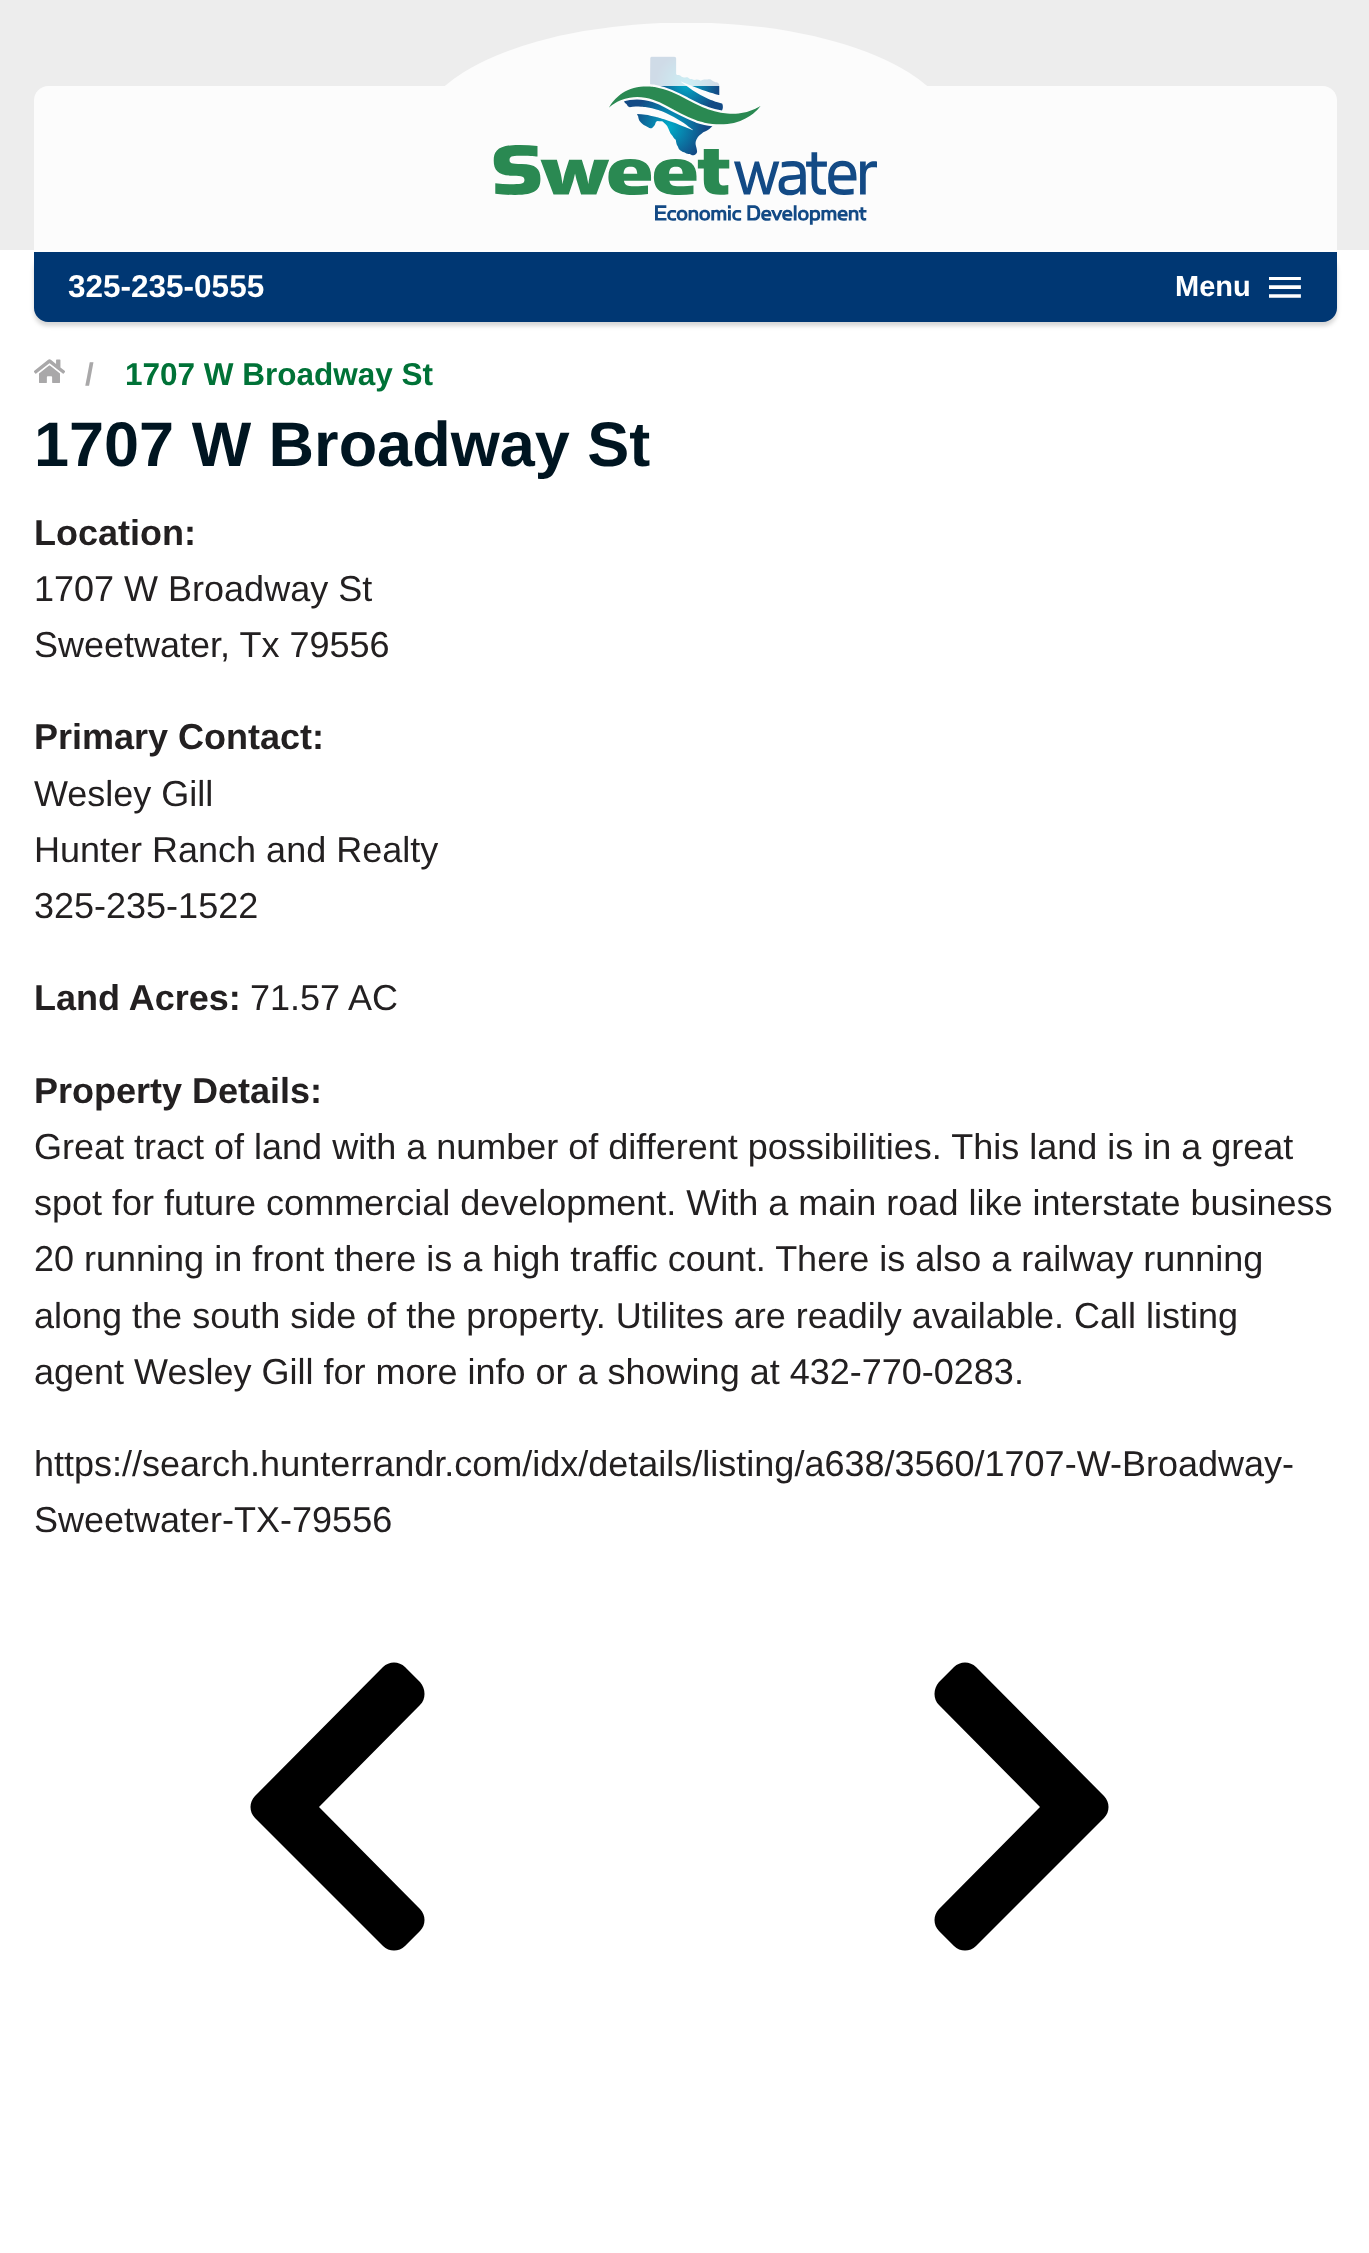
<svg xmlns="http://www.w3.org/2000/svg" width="1369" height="2253">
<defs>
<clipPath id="clip1"><rect x="419" y="23" width="535" height="63"/></clipPath>
</defs>
<rect width="100%" height="100%" fill="#fff"/>
<rect width="1369" height="250" fill="#ededed"/>
<path d="M48 86h1275c7.5 0 14 6.5 14 14v152h-1303v-152c0-7.5 6.5-14 14-14z" fill="#ffffffcc"/>
<image x="493" y="56" width="384" height="169" href="media/1.png"/>
<g clip-path="url(#clip1)">
<ellipse cx="686" cy="135" rx="268" ry="112.5" fill="#ffffffcc"/>
</g>
<rect x="34" y="257" width="1303" height="69" rx="14" fill="#00000029" filter="blur(2px)"/>
<path d="M34 252h1303v56c0 7.5-6.5 14-14 14h-1275c-7.5 0-14-6.5-14-14z" fill="#003773"/>
<text x="68" y="297" style="font-family:Liberation Sans;font-size:31.5px;font-weight:bold;fill:#fff">325-235-0555</text>
<text x="1175" y="296" style="font-family:Liberation Sans;font-size:29px;font-weight:bold;fill:#fff">Menu</text>
<image x="1269" y="277" width="32" height="21" href="media/2.png"/>
<image x="34" y="359" width="31" height="24" href="media/3.png"/>
<text x="85" y="385" style="font-family:Liberation Sans;font-size:31.5px;font-weight:bold;fill:#a9a8a9">/</text>
<text x="125" y="385" style="font-family:Liberation Sans;font-size:31.5px;font-weight:bold;fill:#007237">1707 W Broadway St</text>
<text x="34" y="466" style="font-family:Liberation Sans;font-size:63px;font-weight:bold;fill:#001521">1707 W Broadway St</text>
<text x="34" y="545" style="font-family:Liberation Sans;font-size:36px;font-weight:bold;fill:#232021">Location:</text>
<text x="34" y="601" style="font-family:Liberation Sans;font-size:36px;fill:#232021">1707 W Broadway St</text>
<text x="34" y="657" style="font-family:Liberation Sans;font-size:36px;fill:#232021">Sweetwater, Tx 79556</text>
<text x="34" y="749" style="font-family:Liberation Sans;font-size:36px;font-weight:bold;fill:#232021">Primary Contact:</text>
<text x="34" y="806" style="font-family:Liberation Sans;font-size:36px;fill:#232021">Wesley Gill</text>
<text x="34" y="862" style="font-family:Liberation Sans;font-size:36px;fill:#232021">Hunter Ranch and Realty</text>
<text x="34" y="918" style="font-family:Liberation Sans;font-size:36px;fill:#232021">325-235-1522</text>
<text x="34" y="1010" style="font-family:Liberation Sans;font-size:36px;font-weight:bold;fill:#232021">Land Acres:</text>
<text x="250" y="1010" style="font-family:Liberation Sans;font-size:36px;fill:#232021">71.57 AC</text>
<text x="34" y="1103" style="font-family:Liberation Sans;font-size:36px;font-weight:bold;fill:#232021">Property Details:</text>
<text x="34" y="1159" style="font-family:Liberation Sans;font-size:36px;fill:#232021">Great tract of land with a number of different possibilities. This land is in a great</text>
<text x="34" y="1215" style="font-family:Liberation Sans;font-size:36px;fill:#232021">spot for future commercial development. With a main road like interstate business</text>
<text x="34" y="1271" style="font-family:Liberation Sans;font-size:36px;fill:#232021">20 running in front there is a high traffic count. There is also a railway running</text>
<text x="34" y="1328" style="font-family:Liberation Sans;font-size:36px;fill:#232021">along the south side of the property. Utilites are readily available. Call listing</text>
<text x="34" y="1384" style="font-family:Liberation Sans;font-size:36px;fill:#232021">agent Wesley Gill for more info or a showing at 432-770-0283.</text>
<text x="34" y="1476" style="font-family:Liberation Sans;font-size:36px;fill:#232021">https://search.hunterrandr.com/idx/details/listing/a638/3560/1707-W-Broadway-</text>
<text x="34" y="1532" style="font-family:Liberation Sans;font-size:36px;fill:#232021">Sweetwater-TX-79556</text>
<path d="M255 1796l128-129c6-6 16-6 22 0l15 15c6 7 6 17 0 23l-101 102l101 102c6 6 6 16 0 22l-15 15c-6 6-16 6-22 0l-128-128c-6-6-6-16 0-22z" fill="#000"/>
<path d="M1104 1818l-128 128c-6 6-16 6-22 0l-15-15c-6-6-6-16 0-22l101-102l-101-102c-6-6-6-16 0-23l15-15c6-6 16-6 22 0l128 129c6 6 6 16 0 22z" fill="#000"/>
</svg>
